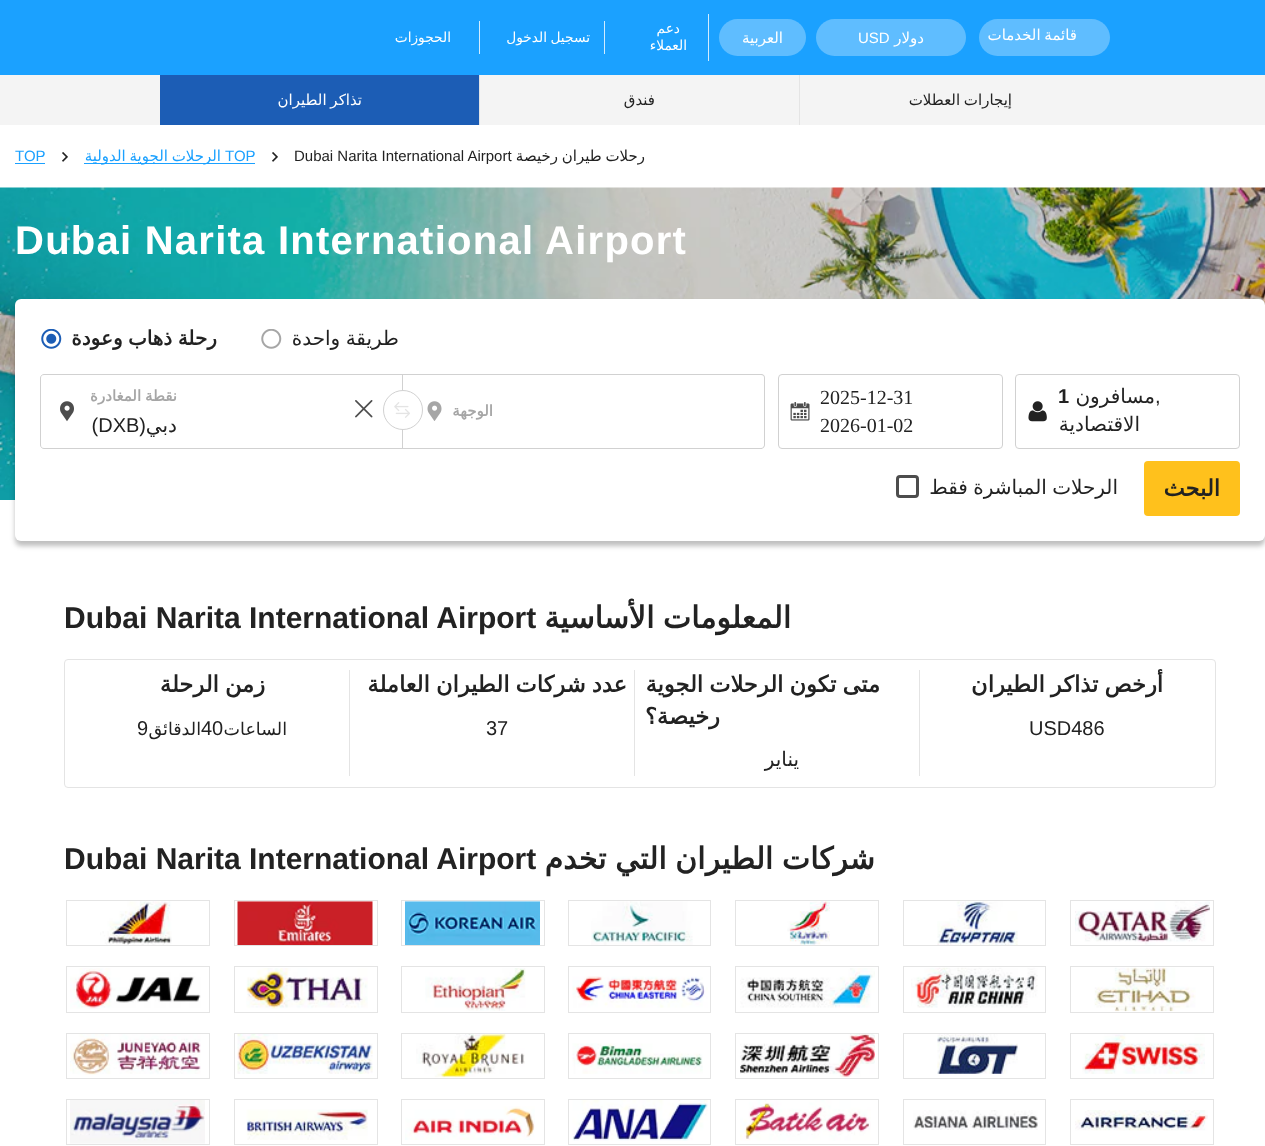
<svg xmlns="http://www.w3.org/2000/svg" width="1265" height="1146">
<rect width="100%" height="100%" fill="#fff"/>
<rect width="1265" height="75" fill="#1ba1ff"/>
<rect x="979" y="19" width="131" height="37" rx="18.5" fill="#5fbdff"/>
<text x="1077" y="40" word-spacing="-1" style="font-family:DejaVu Sans;font-size:15px;direction:rtl;fill:#fff">قائمة الخدمات</text>
<rect x="816" y="19" width="150" height="37" rx="18.5" fill="#5fbdff"/>
<text x="924" y="43" style="font-family:DejaVu Sans;font-size:15px;direction:rtl;fill:#fff">دولار</text>
<text x="858" y="43" style="font-family:Liberation Sans;font-size:15px;fill:#fff">USD</text>
<rect x="719" y="19" width="87" height="37" rx="18.5" fill="#5fbdff"/>
<text x="783" y="43" style="font-family:DejaVu Sans;font-size:15px;direction:rtl;fill:#fff">العربية</text>
<rect x="708" y="14" width="1" height="47" fill="#d1ecff"/>
<text x="680" y="33" style="font-family:DejaVu Sans;font-size:13.75px;direction:rtl;fill:#fff">دعم</text>
<text x="687" y="50" style="font-family:DejaVu Sans;font-size:13.75px;direction:rtl;fill:#fff">العملاء</text>
<rect x="604" y="21" width="1" height="33" fill="#d1ecff"/>
<text x="590" y="42" word-spacing="-1" style="font-family:DejaVu Sans;font-size:13.75px;direction:rtl;fill:#fff">تسجيل الدخول</text>
<rect x="479" y="21" width="1" height="33" fill="#d1ecff"/>
<text x="451" y="42" style="font-family:DejaVu Sans;font-size:13.75px;direction:rtl;fill:#fff">الحجوزات</text>
<rect y="75" width="1265" height="50" fill="#f4f4f4"/>
<text x="1012" y="105" word-spacing="-1" style="font-family:DejaVu Sans;font-size:15px;direction:rtl;fill:#222">إيجارات العطلات</text>
<rect x="799" y="75" width="1" height="50" fill="#e4e4e4"/>
<text x="655" y="105" style="font-family:DejaVu Sans;font-size:15px;direction:rtl;fill:#222">فندق</text>
<rect x="160" y="75" width="319" height="50" fill="#1c5db5"/>
<rect x="479" y="75" width="1" height="50" fill="#e4e4e4"/>
<text x="362" y="105" word-spacing="-1" style="font-family:DejaVu Sans;font-size:15px;direction:rtl;fill:#fff">تذاكر الطيران</text>
<text x="645" y="161" word-spacing="-1" style="font-family:DejaVu Sans;font-size:15px;direction:rtl;fill:#222">رحلات طيران رخيصة</text>
<text x="294" y="161" style="font-family:Liberation Sans;font-size:15px;fill:#222">Dubai Narita International Airport</text>
<image x="272" y="152" width="6" height="10" href="media/1.png"/>
<text x="225" y="161" style="font-family:Liberation Sans;font-size:15px;fill:#1ba1ff">TOP</text>
<rect x="84" y="163" width="171" height="1" fill="#1ba1ff"/>
<text x="221" y="161" word-spacing="-1" style="font-family:DejaVu Sans;font-size:15px;direction:rtl;fill:#1ba1ff">الرحلات الجوية الدولية</text>
<image x="62" y="152" width="6" height="10" href="media/1.png"/>
<text x="15" y="161" style="font-family:Liberation Sans;font-size:15px;fill:#1ba1ff">TOP</text>
<rect x="15" y="163" width="30" height="1" fill="#1ba1ff"/>
<image x="0" y="187" width="1265" height="313" href="media/2.png"/>
<text x="15" y="254" style="font-family:Liberation Sans;font-size:40px;font-weight:bold;letter-spacing:1.25px;fill:#fff">Dubai Narita International Airport</text>
<rect x="15" y="304" width="1250" height="242" rx="6" fill="#00000040" filter="blur(2.5px)"/>
<rect x="15" y="299" width="1250" height="242" rx="6" fill="#fff"/>
<text x="399" y="345" word-spacing="-1" style="font-family:DejaVu Sans;font-size:20px;direction:rtl;fill:#222">طريقة واحدة</text>
<image x="261" y="329" width="21" height="20" href="media/3.png"/>
<text x="217" y="345" word-spacing="-1" style="font-family:DejaVu Sans;font-size:20px;font-weight:bold;direction:rtl;fill:#222">رحلة ذهاب وعودة</text>
<image x="41" y="329" width="21" height="20" href="media/4.png"/>
<rect x="1015.5" y="374.5" width="224" height="74" rx="3.5" fill="none" stroke="#d1d1d1"/>
<text x="1155" y="403" style="font-family:Liberation Sans;font-size:20px;fill:#222">,</text>
<text x="1155" y="403" style="font-family:DejaVu Sans;font-size:20px;direction:rtl;fill:#222">مسافرون</text>
<text x="1058" y="403" style="font-family:Liberation Sans;font-size:20px;font-weight:bold;fill:#222">1</text>
<text x="1140" y="431" style="font-family:DejaVu Sans;font-size:20px;direction:rtl;fill:#222">الاقتصادية</text>
<image x="1028" y="401" width="19" height="21" href="media/5.png"/>
<rect x="778.5" y="374.5" width="224" height="74" rx="3.5" fill="none" stroke="#d1d1d1"/>
<text x="820" y="404" style="font-family:Liberation Serif;font-size:20px;fill:#222">2025-12-31</text>
<text x="820" y="432" style="font-family:Liberation Serif;font-size:20px;fill:#222">2026-01-02</text>
<image x="790" y="402" width="20" height="19" href="media/6.png"/>
<path d="M44 374.5h358.5v74h-358.5c-2 0-3.5-1.5-3.5-3.5v-67c0-2 1.5-3.5 3.5-3.5z" fill="none" stroke="#d1d1d1"/>
<path d="M402 374h359c2 0 4 1 4 4v67c0 2-2 4-4 4h-359zm0 1h359c2 0 3 1 3 3v67c0 1-1 3-3 3h-359z" fill="#d1d1d1" fill-rule="evenodd"/>
<text x="493" y="416" style="font-family:DejaVu Sans;font-size:15px;font-weight:bold;direction:rtl;fill:#a6a6a6">الوجهة</text>
<image x="427" y="401" width="15" height="20" href="media/7.png"/>
<circle cx="403" cy="410" r="19.5" fill="#fff" stroke="#d1d1d1"/>
<image x="394" y="402" width="16" height="16" href="media/8.png"/>
<image x="355" y="400" width="18" height="18" href="media/9.png"/>
<text x="177" y="401" word-spacing="-1" style="font-family:DejaVu Sans;font-size:15px;font-weight:bold;direction:rtl;fill:#a6a6a6">نقطة المغادرة</text>
<text x="177" y="432" style="font-family:DejaVu Sans;font-size:20px;direction:rtl;fill:#222">دبي</text>
<text x="146" y="432" style="font-family:Liberation Sans;font-size:20px;direction:rtl;fill:#222">(DXB)</text>
<image x="60" y="401" width="14" height="21" href="media/10.png"/>
<rect x="1144" y="461" width="96" height="55" rx="4" fill="#ffc11c"/>
<text x="1220" y="496" style="font-family:DejaVu Sans;font-size:22.5px;font-weight:bold;direction:rtl;fill:#222">البحث</text>
<text x="1118" y="494" word-spacing="-1" style="font-family:DejaVu Sans;font-size:20px;direction:rtl;fill:#222">الرحلات المباشرة فقط</text>
<rect x="897.5" y="476.5" width="20" height="20" rx="2.5" fill="none" stroke="#4d4d4d" stroke-width="3"/>
<text x="791" y="628" word-spacing="-1" style="font-family:DejaVu Sans;font-size:30px;font-weight:bold;direction:rtl;fill:#222">المعلومات الأساسية</text>
<text x="64" y="628" style="font-family:Liberation Sans;font-size:30px;font-weight:bold;fill:#222">Dubai Narita International Airport</text>
<rect x="64.5" y="659.5" width="1151" height="128" rx="3.5" fill="none" stroke="#e4e4e4"/>
<text x="1163" y="692" word-spacing="-1" style="font-family:DejaVu Sans;font-size:22.5px;font-weight:bold;direction:rtl;fill:#222">أرخص تذاكر الطيران</text>
<text x="1029" y="735" style="font-family:Liberation Sans;font-size:20px;fill:#222">USD486</text>
<rect x="919" y="670" width="1" height="106" fill="#e4e4e4"/>
<text x="880" y="692" word-spacing="-1" style="font-family:DejaVu Sans;font-size:22.5px;font-weight:bold;direction:rtl;fill:#222">متى تكون الرحلات الجوية</text>
<text x="720" y="724" style="font-family:DejaVu Sans;font-size:22.5px;font-weight:bold;direction:rtl;fill:#222">رخيصة؟</text>
<text x="799" y="766" style="font-family:DejaVu Sans;font-size:20px;direction:rtl;fill:#222">يناير</text>
<rect x="634" y="670" width="1" height="106" fill="#e4e4e4"/>
<text x="627" y="692" word-spacing="-1" style="font-family:DejaVu Sans;font-size:22.5px;font-weight:bold;direction:rtl;fill:#222">عدد شركات الطيران العاملة</text>
<text x="486" y="735" style="font-family:Liberation Sans;font-size:20px;fill:#222">37</text>
<rect x="349" y="670" width="1" height="106" fill="#e4e4e4"/>
<text x="265" y="692" word-spacing="-1" style="font-family:DejaVu Sans;font-size:22.5px;font-weight:bold;direction:rtl;fill:#222">زمن الرحلة</text>
<text x="287" y="735" style="font-family:DejaVu Sans;font-size:17.5px;direction:rtl;fill:#222">الساعات</text>
<text x="201" y="735" style="font-family:Liberation Sans;font-size:20px;fill:#222">40</text>
<text x="201" y="735" style="font-family:DejaVu Sans;font-size:17.5px;direction:rtl;fill:#222">الدقائق</text>
<text x="137" y="735" style="font-family:Liberation Sans;font-size:20px;fill:#222">9</text>
<text x="875" y="869" word-spacing="-1" style="font-family:DejaVu Sans;font-size:30px;font-weight:bold;direction:rtl;fill:#222">شركات الطيران التي تخدم</text>
<text x="64" y="869" style="font-family:Liberation Sans;font-size:30px;font-weight:bold;fill:#222">Dubai Narita International Airport</text>
<rect x="1070.5" y="900.5" width="143" height="45" fill="none" stroke="#e4e4e4"/>
<image x="1075" y="901" width="135" height="44" href="media/11.png"/>
<rect x="903.5" y="900.5" width="142" height="45" fill="none" stroke="#e4e4e4"/>
<image x="937" y="901" width="81" height="44" href="media/12.png"/>
<rect x="735.5" y="900.5" width="143" height="45" fill="none" stroke="#e4e4e4"/>
<image x="787" y="901" width="43" height="44" href="media/13.png"/>
<rect x="568.5" y="900.5" width="142" height="45" fill="none" stroke="#e4e4e4"/>
<image x="591" y="901" width="102" height="44" href="media/14.png"/>
<rect x="401.5" y="900.5" width="143" height="45" fill="none" stroke="#e4e4e4"/>
<image x="405" y="901" width="135" height="44" href="media/15.png"/>
<rect x="234.5" y="900.5" width="143" height="45" fill="none" stroke="#e4e4e4"/>
<image x="237" y="901" width="136" height="44" href="media/16.png"/>
<rect x="66.5" y="900.5" width="143" height="45" fill="none" stroke="#e4e4e4"/>
<image x="100" y="901" width="72" height="44" href="media/17.png"/>
<rect x="1070.5" y="966.5" width="143" height="46" fill="none" stroke="#e4e4e4"/>
<image x="1094" y="967" width="102" height="45" href="media/18.png"/>
<rect x="903.5" y="966.5" width="142" height="46" fill="none" stroke="#e4e4e4"/>
<image x="911" y="967" width="127" height="41" href="media/19.png"/>
<rect x="735.5" y="966.5" width="143" height="46" fill="none" stroke="#e4e4e4"/>
<image x="740" y="968" width="135" height="40" href="media/20.png"/>
<rect x="568.5" y="966.5" width="142" height="46" fill="none" stroke="#e4e4e4"/>
<image x="572" y="976" width="136" height="32" href="media/21.png"/>
<rect x="401.5" y="966.5" width="143" height="46" fill="none" stroke="#e4e4e4"/>
<image x="425" y="968" width="101" height="43" href="media/22.png"/>
<rect x="234.5" y="966.5" width="143" height="46" fill="none" stroke="#e4e4e4"/>
<image x="246" y="968" width="122" height="41" href="media/23.png"/>
<rect x="66.5" y="966.5" width="143" height="46" fill="none" stroke="#e4e4e4"/>
<image x="70" y="968" width="131" height="41" href="media/24.png"/>
<rect x="1070.5" y="1033.5" width="143" height="45" fill="none" stroke="#e4e4e4"/>
<image x="1082" y="1034" width="123" height="40" href="media/25.png"/>
<rect x="903.5" y="1033.5" width="142" height="45" fill="none" stroke="#e4e4e4"/>
<image x="937" y="1034" width="81" height="40" href="media/26.png"/>
<rect x="735.5" y="1033.5" width="143" height="45" fill="none" stroke="#e4e4e4"/>
<image x="740" y="1034" width="135" height="44" href="media/27.png"/>
<rect x="568.5" y="1033.5" width="142" height="45" fill="none" stroke="#e4e4e4"/>
<image x="572" y="1043" width="131" height="31" href="media/28.png"/>
<rect x="401.5" y="1033.5" width="143" height="45" fill="none" stroke="#e4e4e4"/>
<image x="416" y="1034" width="109" height="44" href="media/29.png"/>
<rect x="234.5" y="1033.5" width="143" height="45" fill="none" stroke="#e4e4e4"/>
<image x="237" y="1034" width="136" height="40" href="media/30.png"/>
<rect x="66.5" y="1033.5" width="143" height="45" fill="none" stroke="#e4e4e4"/>
<image x="70" y="1034" width="131" height="41" href="media/31.png"/>
<rect x="1070.5" y="1099.5" width="143" height="45" fill="none" stroke="#e4e4e4"/>
<image x="1075" y="1110" width="133" height="21" href="media/32.png"/>
<rect x="903.5" y="1099.5" width="142" height="45" fill="none" stroke="#e4e4e4"/>
<image x="913" y="1110" width="125" height="20" href="media/33.png"/>
<rect x="735.5" y="1099.5" width="143" height="45" fill="none" stroke="#e4e4e4"/>
<image x="740" y="1100" width="131" height="41" href="media/34.png"/>
<rect x="568.5" y="1099.5" width="142" height="45" fill="none" stroke="#e4e4e4"/>
<image x="572" y="1100" width="136" height="41" href="media/35.png"/>
<rect x="401.5" y="1099.5" width="143" height="45" fill="none" stroke="#e4e4e4"/>
<image x="405" y="1106" width="130" height="34" href="media/36.png"/>
<rect x="234.5" y="1099.5" width="143" height="45" fill="none" stroke="#e4e4e4"/>
<image x="246" y="1109" width="122" height="31" href="media/37.png"/>
<rect x="66.5" y="1099.5" width="143" height="45" fill="none" stroke="#e4e4e4"/>
<image x="70" y="1100" width="135" height="44" href="media/38.png"/>
</svg>
